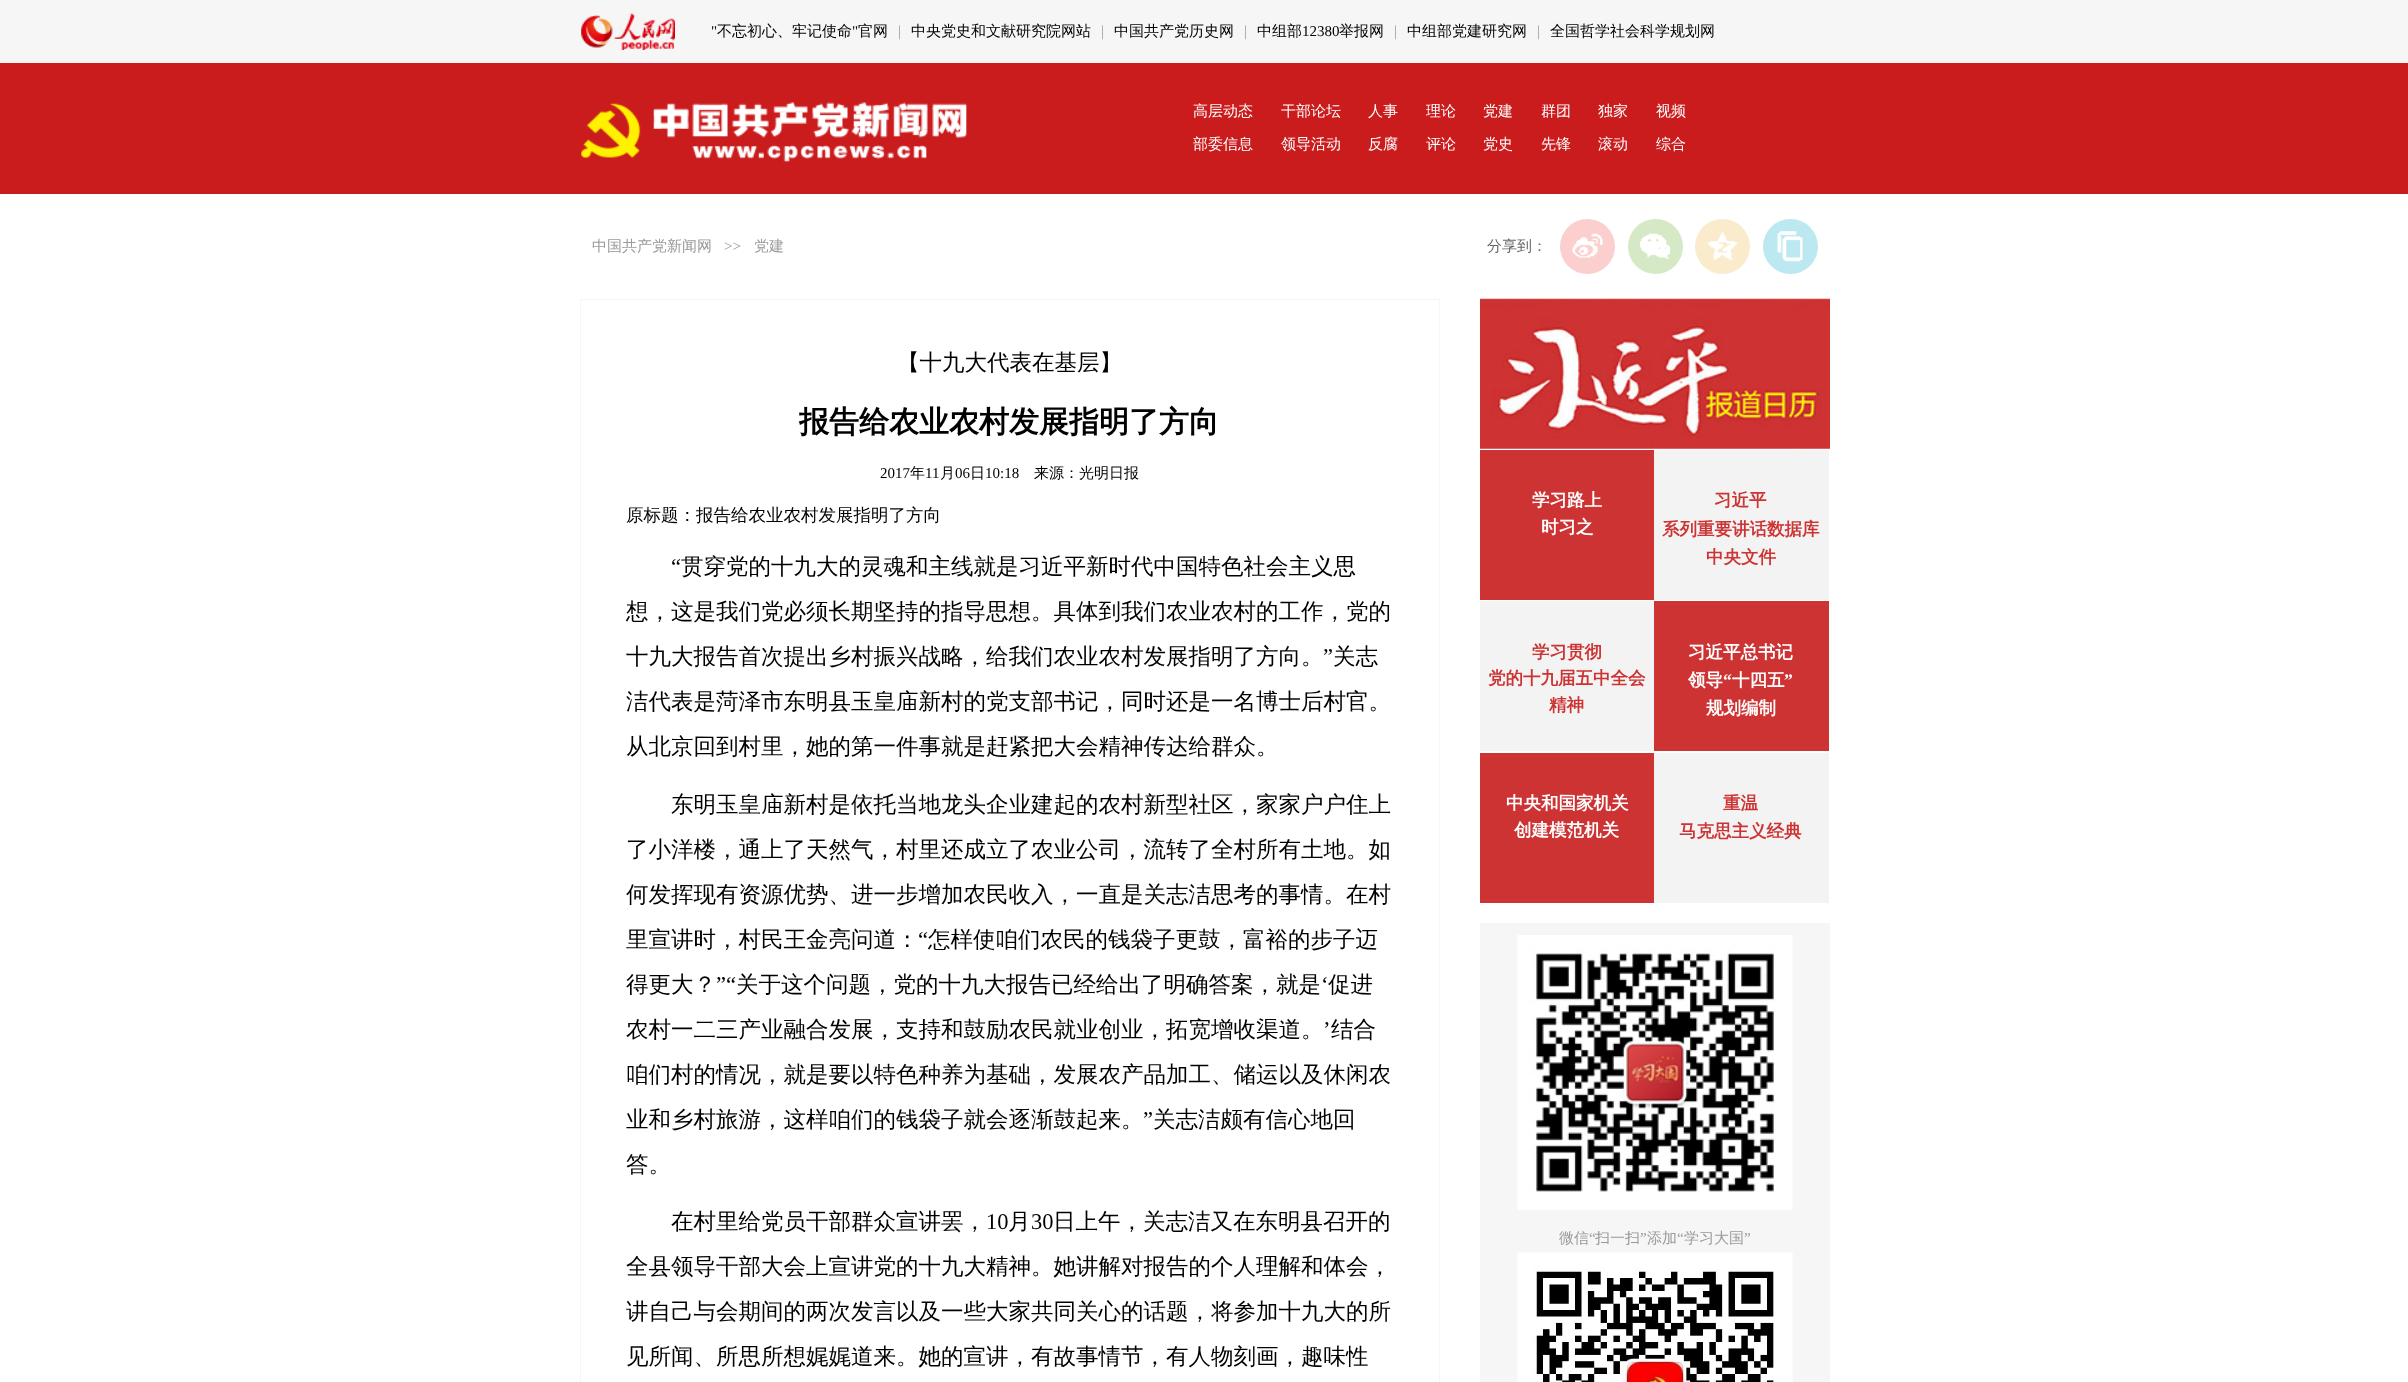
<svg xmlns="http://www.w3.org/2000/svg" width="2408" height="1382">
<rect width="100%" height="100%" fill="#fff"/>
<rect width="2408" height="63" fill="#f6f6f6"/>
<image x="581" y="13" width="94" height="37" href="media/1.png"/>
<text x="711" y="36" style="font-family:Liberation Serif;font-size:15px;fill:#000">"</text>
<text x="717" y="36" style="font-family:WenQuanYi Zen Hei;font-size:15px;font-weight:500;fill:#000">不忘初心、牢记使命</text>
<text x="852" y="36" style="font-family:Liberation Serif;font-size:15px;fill:#000">"</text>
<text x="858" y="36" style="font-family:WenQuanYi Zen Hei;font-size:15px;font-weight:500;fill:#000">官网</text>
<text x="898" y="36" style="font-family:Liberation Serif;font-size:15px;fill:#999">|</text>
<text x="911" y="36" style="font-family:WenQuanYi Zen Hei;font-size:15px;font-weight:500;fill:#000">中央党史和文献研究院网站</text>
<text x="1101" y="36" style="font-family:Liberation Serif;font-size:15px;fill:#999">|</text>
<text x="1114" y="36" style="font-family:WenQuanYi Zen Hei;font-size:15px;font-weight:500;fill:#000">中国共产党历史网</text>
<text x="1244" y="36" style="font-family:Liberation Serif;font-size:15px;fill:#999">|</text>
<text x="1257" y="36" style="font-family:WenQuanYi Zen Hei;font-size:15px;font-weight:500;fill:#000">中组部</text>
<text x="1302" y="36" style="font-family:Liberation Serif;font-size:15px;fill:#000">12380</text>
<text x="1339" y="36" style="font-family:WenQuanYi Zen Hei;font-size:15px;font-weight:500;fill:#000">举报网</text>
<text x="1394" y="36" style="font-family:Liberation Serif;font-size:15px;fill:#999">|</text>
<text x="1407" y="36" style="font-family:WenQuanYi Zen Hei;font-size:15px;font-weight:500;fill:#000">中组部党建研究网</text>
<text x="1537" y="36" style="font-family:Liberation Serif;font-size:15px;fill:#999">|</text>
<text x="1550" y="36" style="font-family:WenQuanYi Zen Hei;font-size:15px;font-weight:500;fill:#000">全国哲学社会科学规划网</text>
<rect y="63" width="2408" height="131" fill="#cb1c1d"/>
<image x="581" y="102" width="386" height="60" href="media/2.png"/>
<text x="1193" y="116" style="font-family:WenQuanYi Zen Hei;font-size:15px;font-weight:500;fill:#fff">高层动态</text>
<text x="1281" y="116" style="font-family:WenQuanYi Zen Hei;font-size:15px;font-weight:500;fill:#fff">干部论坛</text>
<text x="1368" y="116" style="font-family:WenQuanYi Zen Hei;font-size:15px;font-weight:500;fill:#fff">人事</text>
<text x="1426" y="116" style="font-family:WenQuanYi Zen Hei;font-size:15px;font-weight:500;fill:#fff">理论</text>
<text x="1483" y="116" style="font-family:WenQuanYi Zen Hei;font-size:15px;font-weight:500;fill:#fff">党建</text>
<text x="1541" y="116" style="font-family:WenQuanYi Zen Hei;font-size:15px;font-weight:500;fill:#fff">群团</text>
<text x="1598" y="116" style="font-family:WenQuanYi Zen Hei;font-size:15px;font-weight:500;fill:#fff">独家</text>
<text x="1656" y="116" style="font-family:WenQuanYi Zen Hei;font-size:15px;font-weight:500;fill:#fff">视频</text>
<text x="1193" y="149" style="font-family:WenQuanYi Zen Hei;font-size:15px;font-weight:500;fill:#fff">部委信息</text>
<text x="1281" y="149" style="font-family:WenQuanYi Zen Hei;font-size:15px;font-weight:500;fill:#fff">领导活动</text>
<text x="1368" y="149" style="font-family:WenQuanYi Zen Hei;font-size:15px;font-weight:500;fill:#fff">反腐</text>
<text x="1426" y="149" style="font-family:WenQuanYi Zen Hei;font-size:15px;font-weight:500;fill:#fff">评论</text>
<text x="1483" y="149" style="font-family:WenQuanYi Zen Hei;font-size:15px;font-weight:500;fill:#fff">党史</text>
<text x="1541" y="149" style="font-family:WenQuanYi Zen Hei;font-size:15px;font-weight:500;fill:#fff">先锋</text>
<text x="1598" y="149" style="font-family:WenQuanYi Zen Hei;font-size:15px;font-weight:500;fill:#fff">滚动</text>
<text x="1656" y="149" style="font-family:WenQuanYi Zen Hei;font-size:15px;font-weight:500;fill:#fff">综合</text>
<text x="592" y="251" style="font-family:WenQuanYi Zen Hei;font-size:15px;font-weight:500;fill:#999">中国共产党新闻网</text>
<text x="724" y="251" style="font-family:Liberation Serif;font-size:15px;fill:#999">&gt;&gt;</text>
<text x="754" y="251" style="font-family:WenQuanYi Zen Hei;font-size:15px;font-weight:500;fill:#999">党建</text>
<text x="1487" y="251" style="font-family:WenQuanYi Zen Hei;font-size:15px;font-weight:500;fill:#666">分享到：</text>
<circle cx="1587.5" cy="246.5" r="27.5" fill="#fccfcf"/>
<image x="1572" y="233" width="31" height="25" href="media/3.png"/>
<circle cx="1655.5" cy="246.5" r="27.5" fill="#d6e9c6"/>
<image x="1640" y="233" width="30" height="26" href="media/4.png"/>
<circle cx="1722.5" cy="246.5" r="27.5" fill="#faebcc"/>
<image x="1707" y="232" width="31" height="29" href="media/5.png"/>
<circle cx="1790.5" cy="246.5" r="27.5" fill="#bce8f1"/>
<image x="1777" y="231" width="26" height="31" href="media/6.png"/>
<rect x="580.5" y="299.5" width="859" height="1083" fill="none" stroke="#f6f6f6"/>
<text x="897" y="370" style="font-family:WenQuanYi Zen Hei;font-size:22.5px;font-weight:500;fill:#000">【十九大代表在基层】</text>
<text x="799" y="432" style="font-family:WenQuanYi Zen Hei;font-size:30px;font-weight:bold;fill:#000">报告给农业农村发展指明了方向</text>
<text x="880" y="478" style="font-family:Liberation Serif;font-size:15px;fill:#000">2017</text>
<text x="910" y="478" style="font-family:WenQuanYi Zen Hei;font-size:15px;font-weight:500;fill:#000">年</text>
<text x="925" y="478" style="font-family:Liberation Serif;font-size:15px;fill:#000">11</text>
<text x="940" y="478" style="font-family:WenQuanYi Zen Hei;font-size:15px;font-weight:500;fill:#000">月</text>
<text x="955" y="478" style="font-family:Liberation Serif;font-size:15px;fill:#000">06</text>
<text x="970" y="478" style="font-family:WenQuanYi Zen Hei;font-size:15px;font-weight:500;fill:#000">日</text>
<text x="985" y="478" style="font-family:Liberation Serif;font-size:15px;fill:#000">10:18</text>
<text x="1034" y="478" style="font-family:WenQuanYi Zen Hei;font-size:15px;font-weight:500;fill:#000">来源：光明日报</text>
<text x="626" y="521" style="font-family:WenQuanYi Zen Hei;font-size:17.5px;font-weight:500;fill:#000">原标题：报告给农业农村发展指明了方向</text>
<text x="671" y="574" style="font-family:Liberation Serif;font-size:22.5px;fill:#000">“</text>
<text x="681" y="574" style="font-family:WenQuanYi Zen Hei;font-size:22.5px;font-weight:500;fill:#000">贯穿党的十九大的灵魂和主线就是习近平新时代中国特色社会主义思</text>
<text x="626" y="619" style="font-family:WenQuanYi Zen Hei;font-size:22.5px;font-weight:500;fill:#000">想，这是我们党必须长期坚持的指导思想。具体到我们农业农村的工作，党的</text>
<text x="626" y="664" style="font-family:WenQuanYi Zen Hei;font-size:22.5px;font-weight:500;fill:#000">十九大报告首次提出乡村振兴战略，给我们农业农村发展指明了方向。</text>
<text x="1323" y="664" style="font-family:Liberation Serif;font-size:22.5px;fill:#000">”</text>
<text x="1333" y="664" style="font-family:WenQuanYi Zen Hei;font-size:22.5px;font-weight:500;fill:#000">关志</text>
<text x="626" y="709" style="font-family:WenQuanYi Zen Hei;font-size:22.5px;font-weight:500;fill:#000">洁代表是菏泽市东明县玉皇庙新村的党支部书记，同时还是一名博士后村官。</text>
<text x="626" y="754" style="font-family:WenQuanYi Zen Hei;font-size:22.5px;font-weight:500;fill:#000">从北京回到村里，她的第一件事就是赶紧把大会精神传达给群众。</text>
<text x="671" y="812" style="font-family:WenQuanYi Zen Hei;font-size:22.5px;font-weight:500;fill:#000">东明玉皇庙新村是依托当地龙头企业建起的农村新型社区，家家户户住上</text>
<text x="626" y="857" style="font-family:WenQuanYi Zen Hei;font-size:22.5px;font-weight:500;fill:#000">了小洋楼，通上了天然气，村里还成立了农业公司，流转了全村所有土地。如</text>
<text x="626" y="902" style="font-family:WenQuanYi Zen Hei;font-size:22.5px;font-weight:500;fill:#000">何发挥现有资源优势、进一步增加农民收入，一直是关志洁思考的事情。在村</text>
<text x="626" y="947" style="font-family:WenQuanYi Zen Hei;font-size:22.5px;font-weight:500;fill:#000">里宣讲时，村民王金亮问道：</text>
<text x="918" y="947" style="font-family:Liberation Serif;font-size:22.5px;fill:#000">“</text>
<text x="928" y="947" style="font-family:WenQuanYi Zen Hei;font-size:22.5px;font-weight:500;fill:#000">怎样使咱们农民的钱袋子更鼓，富裕的步子迈</text>
<text x="626" y="992" style="font-family:WenQuanYi Zen Hei;font-size:22.5px;font-weight:500;fill:#000">得更大？</text>
<text x="716" y="992" style="font-family:Liberation Serif;font-size:22.5px;fill:#000">”“</text>
<text x="736" y="992" style="font-family:WenQuanYi Zen Hei;font-size:22.5px;font-weight:500;fill:#000">关于这个问题，党的十九大报告已经给出了明确答案，就是</text>
<text x="1321" y="992" style="font-family:Liberation Serif;font-size:22.5px;fill:#000">‘</text>
<text x="1328" y="992" style="font-family:WenQuanYi Zen Hei;font-size:22.5px;font-weight:500;fill:#000">促进</text>
<text x="626" y="1037" style="font-family:WenQuanYi Zen Hei;font-size:22.5px;font-weight:500;fill:#000">农村一二三产业融合发展，支持和鼓励农民就业创业，拓宽增收渠道。</text>
<text x="1323" y="1037" style="font-family:Liberation Serif;font-size:22.5px;fill:#000">’</text>
<text x="1331" y="1037" style="font-family:WenQuanYi Zen Hei;font-size:22.5px;font-weight:500;fill:#000">结合</text>
<text x="626" y="1082" style="font-family:WenQuanYi Zen Hei;font-size:22.5px;font-weight:500;fill:#000">咱们村的情况，就是要以特色种养为基础，发展农产品加工、储运以及休闲农</text>
<text x="626" y="1127" style="font-family:WenQuanYi Zen Hei;font-size:22.5px;font-weight:500;fill:#000">业和乡村旅游，这样咱们的钱袋子就会逐渐鼓起来。</text>
<text x="1143" y="1127" style="font-family:Liberation Serif;font-size:22.5px;fill:#000">”</text>
<text x="1153" y="1127" style="font-family:WenQuanYi Zen Hei;font-size:22.5px;font-weight:500;fill:#000">关志洁颇有信心地回</text>
<text x="626" y="1172" style="font-family:WenQuanYi Zen Hei;font-size:22.5px;font-weight:500;fill:#000">答。</text>
<text x="671" y="1229" style="font-family:WenQuanYi Zen Hei;font-size:22.5px;font-weight:500;fill:#000">在村里给党员干部群众宣讲罢，</text>
<text x="986" y="1229" style="font-family:Liberation Serif;font-size:22.5px;fill:#000">10</text>
<text x="1008" y="1229" style="font-family:WenQuanYi Zen Hei;font-size:22.5px;font-weight:500;fill:#000">月</text>
<text x="1031" y="1229" style="font-family:Liberation Serif;font-size:22.5px;fill:#000">30</text>
<text x="1053" y="1229" style="font-family:WenQuanYi Zen Hei;font-size:22.5px;font-weight:500;fill:#000">日上午，关志洁又在东明县召开的</text>
<text x="626" y="1274" style="font-family:WenQuanYi Zen Hei;font-size:22.5px;font-weight:500;fill:#000">全县领导干部大会上宣讲党的十九大精神。她讲解对报告的个人理解和体会，</text>
<text x="626" y="1319" style="font-family:WenQuanYi Zen Hei;font-size:22.5px;font-weight:500;fill:#000">讲自己与会期间的两次发言以及一些大家共同关心的话题，将参加十九大的所</text>
<text x="626" y="1364" style="font-family:WenQuanYi Zen Hei;font-size:22.5px;font-weight:500;fill:#000">见所闻、所思所想娓娓道来。她的宣讲，有故事情节，有人物刻画，趣味性</text>
<image x="1480" y="298" width="350" height="151" href="media/7.png"/>
<rect x="1480" y="450" width="174" height="150" fill="#cd3333"/>
<text x="1532" y="506" style="font-family:WenQuanYi Zen Hei;font-size:17.5px;font-weight:bold;fill:#fff">学习路上</text>
<text x="1541" y="533" style="font-family:WenQuanYi Zen Hei;font-size:17.5px;font-weight:bold;fill:#fff">时习之</text>
<rect x="1654" y="450" width="175" height="150" fill="#f3f3f3"/>
<text x="1714" y="506" style="font-family:WenQuanYi Zen Hei;font-size:17.5px;font-weight:bold;fill:#cd3333">习近平</text>
<text x="1662" y="535" style="font-family:WenQuanYi Zen Hei;font-size:17.5px;font-weight:bold;fill:#cd3333">系列重要讲话数据库</text>
<text x="1706" y="563" style="font-family:WenQuanYi Zen Hei;font-size:17.5px;font-weight:bold;fill:#cd3333">中央文件</text>
<rect x="1480" y="601" width="174" height="150" fill="#f3f3f3"/>
<text x="1532" y="658" style="font-family:WenQuanYi Zen Hei;font-size:17.5px;font-weight:bold;fill:#cd3333">学习贯彻</text>
<text x="1488" y="684" style="font-family:WenQuanYi Zen Hei;font-size:17.5px;font-weight:bold;fill:#cd3333">党的十九届五中全会</text>
<text x="1549" y="711" style="font-family:WenQuanYi Zen Hei;font-size:17.5px;font-weight:bold;fill:#cd3333">精神</text>
<rect x="1654" y="601" width="175" height="150" fill="#cd3333"/>
<text x="1688" y="658" style="font-family:WenQuanYi Zen Hei;font-size:17.5px;font-weight:bold;fill:#fff">习近平总书记</text>
<text x="1688" y="686" style="font-family:WenQuanYi Zen Hei;font-size:17.5px;font-weight:bold;fill:#fff">领导</text>
<text x="1723" y="686" style="font-family:Liberation Serif;font-size:17.5px;font-weight:bold;fill:#fff">“</text>
<text x="1732" y="686" style="font-family:WenQuanYi Zen Hei;font-size:17.5px;font-weight:bold;fill:#fff">十四五</text>
<text x="1784" y="686" style="font-family:Liberation Serif;font-size:17.5px;font-weight:bold;fill:#fff">”</text>
<text x="1706" y="714" style="font-family:WenQuanYi Zen Hei;font-size:17.5px;font-weight:bold;fill:#fff">规划编制</text>
<rect x="1480" y="753" width="174" height="150" fill="#cd3333"/>
<text x="1506" y="809" style="font-family:WenQuanYi Zen Hei;font-size:17.5px;font-weight:bold;fill:#fff">中央和国家机关</text>
<text x="1514" y="836" style="font-family:WenQuanYi Zen Hei;font-size:17.5px;font-weight:bold;fill:#fff">创建模范机关</text>
<rect x="1654" y="753" width="175" height="150" fill="#f3f3f3"/>
<text x="1723" y="809" style="font-family:WenQuanYi Zen Hei;font-size:17.5px;font-weight:bold;fill:#cd3333">重温</text>
<text x="1679" y="837" style="font-family:WenQuanYi Zen Hei;font-size:17.5px;font-weight:bold;fill:#cd3333">马克思主义经典</text>
<rect x="1480" y="923" width="350" height="459" fill="#f6f6f6"/>
<image x="1517" y="935" width="276" height="275" href="media/8.png"/>
<text x="1559" y="1243" style="font-family:WenQuanYi Zen Hei;font-size:15px;font-weight:500;fill:#999">微信</text>
<text x="1589" y="1243" style="font-family:Liberation Serif;font-size:15px;fill:#999">“</text>
<text x="1595" y="1243" style="font-family:WenQuanYi Zen Hei;font-size:15px;font-weight:500;fill:#999">扫一扫</text>
<text x="1640" y="1243" style="font-family:Liberation Serif;font-size:15px;fill:#999">”</text>
<text x="1647" y="1243" style="font-family:WenQuanYi Zen Hei;font-size:15px;font-weight:500;fill:#999">添加</text>
<text x="1677" y="1243" style="font-family:Liberation Serif;font-size:15px;fill:#999">“</text>
<text x="1684" y="1243" style="font-family:WenQuanYi Zen Hei;font-size:15px;font-weight:500;fill:#999">学习大国</text>
<text x="1744" y="1243" style="font-family:Liberation Serif;font-size:15px;fill:#999">”</text>
<image x="1517" y="1252" width="276" height="130" href="media/9.png"/>
</svg>
